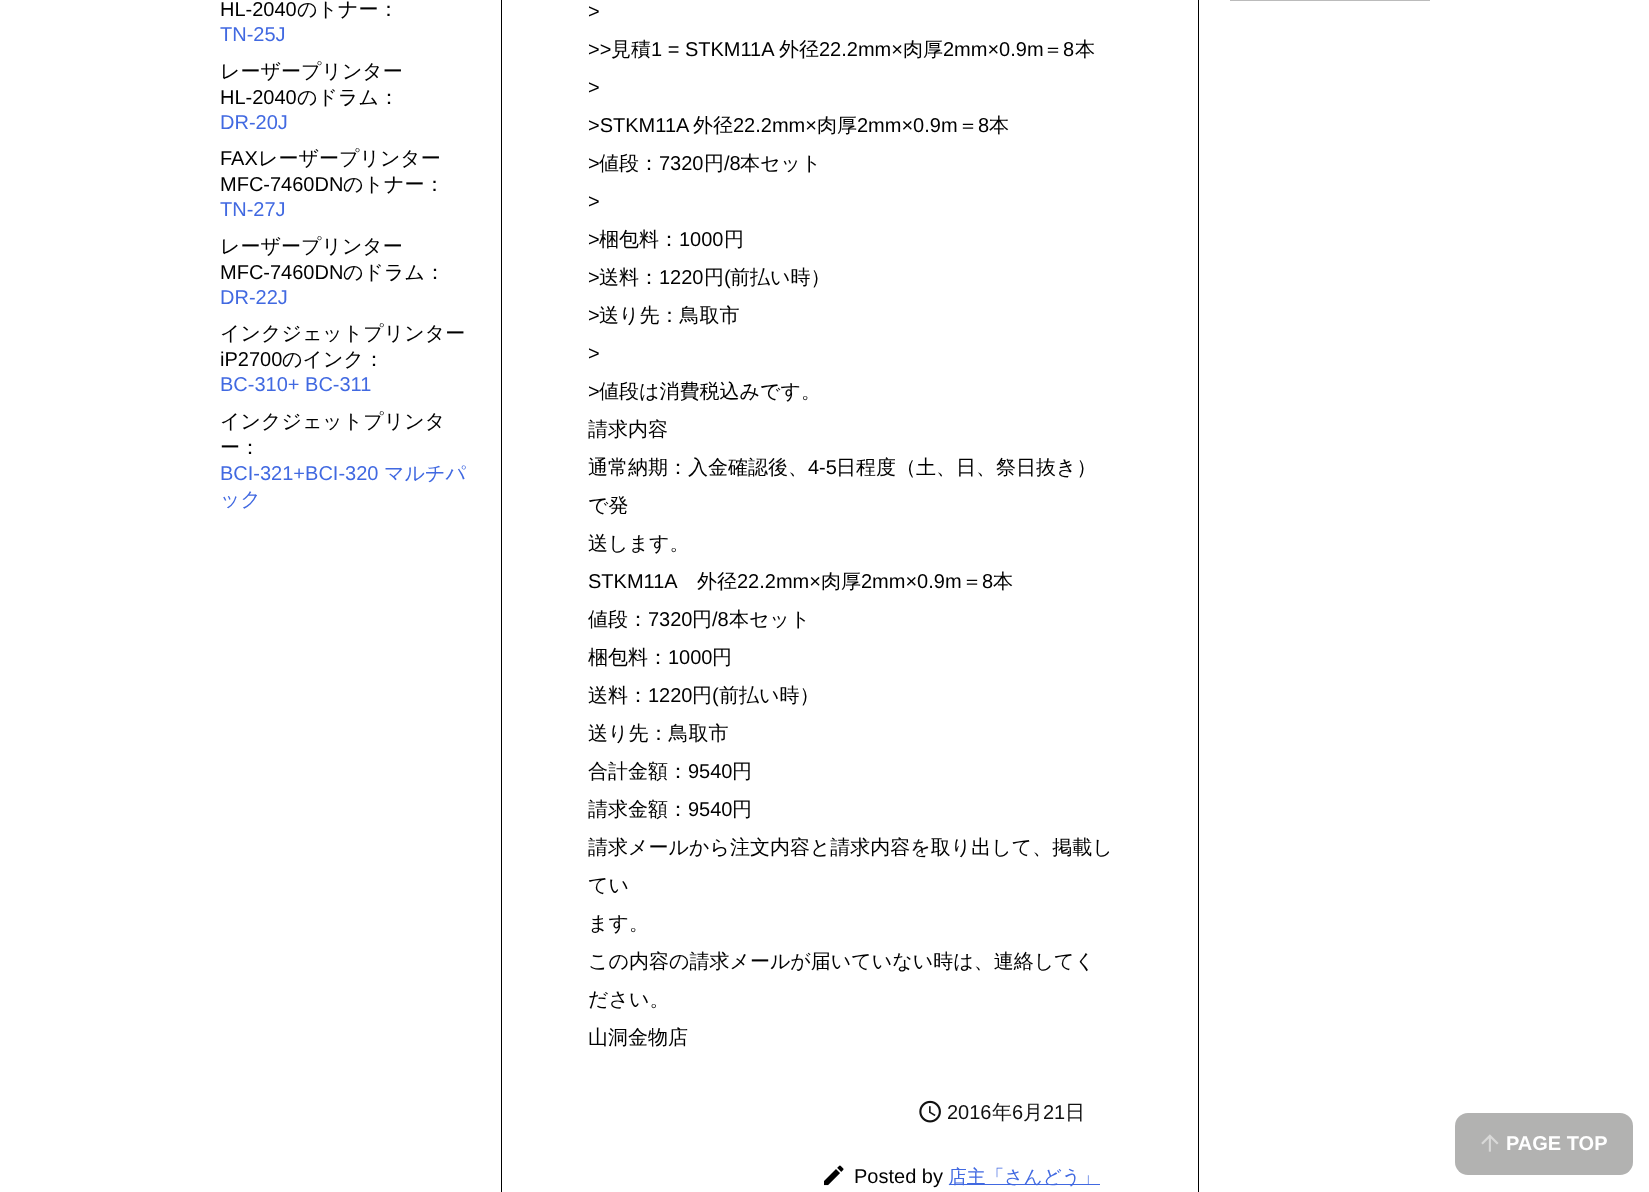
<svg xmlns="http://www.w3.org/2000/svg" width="1649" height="1192">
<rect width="100%" height="100%" fill="#fff"/>
<rect x="1230.5" y="-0.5" width="199" height="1" fill="none" stroke="#bbb"/>
<text x="220" y="16" style="font-family:Liberation Sans;font-size:20px;fill:#000">HL-2040</text>
<text x="297" y="16" style="font-family:WenQuanYi Zen Hei;font-size:20px;font-weight:500;fill:#000">のトナー：</text>
<text x="220" y="41" style="font-family:Liberation Sans;font-size:20px;fill:#4169e1">TN-25J</text>
<text x="220" y="78" style="font-family:WenQuanYi Zen Hei;font-size:20px;font-weight:500;fill:#000">レーザープリンター</text>
<text x="220" y="104" style="font-family:Liberation Sans;font-size:20px;fill:#000">HL-2040</text>
<text x="297" y="104" style="font-family:WenQuanYi Zen Hei;font-size:20px;font-weight:500;fill:#000">のドラム：</text>
<text x="220" y="129" style="font-family:Liberation Sans;font-size:20px;fill:#4169e1">DR-20J</text>
<text x="220" y="165" style="font-family:Liberation Sans;font-size:20px;fill:#000">FAX</text>
<text x="258" y="165" style="font-family:WenQuanYi Zen Hei;font-size:20px;font-weight:500;fill:#000">レーザープリンター</text>
<text x="220" y="191" style="font-family:Liberation Sans;font-size:20px;fill:#000">MFC-7460DN</text>
<text x="343" y="191" style="font-family:WenQuanYi Zen Hei;font-size:20px;font-weight:500;fill:#000">のトナー：</text>
<text x="220" y="216" style="font-family:Liberation Sans;font-size:20px;fill:#4169e1">TN-27J</text>
<text x="220" y="253" style="font-family:WenQuanYi Zen Hei;font-size:20px;font-weight:500;fill:#000">レーザープリンター</text>
<text x="220" y="279" style="font-family:Liberation Sans;font-size:20px;fill:#000">MFC-7460DN</text>
<text x="343" y="279" style="font-family:WenQuanYi Zen Hei;font-size:20px;font-weight:500;fill:#000">のドラム：</text>
<text x="220" y="304" style="font-family:Liberation Sans;font-size:20px;fill:#4169e1">DR-22J</text>
<text x="220" y="340" style="font-family:WenQuanYi Zen Hei;font-size:20px;font-weight:500;fill:#000">インクジェットプリンター</text>
<text x="220" y="366" style="font-family:Liberation Sans;font-size:20px;fill:#000">iP2700</text>
<text x="282" y="366" style="font-family:WenQuanYi Zen Hei;font-size:20px;font-weight:500;fill:#000">のインク：</text>
<text x="220" y="391" style="font-family:Liberation Sans;font-size:20px;fill:#4169e1">BC-310+ BC-311</text>
<text x="220" y="428" style="font-family:WenQuanYi Zen Hei;font-size:20px;font-weight:500;fill:#000">インクジェットプリンタ</text>
<text x="220" y="454" style="font-family:WenQuanYi Zen Hei;font-size:20px;font-weight:500;fill:#000">ー：</text>
<text x="220" y="480" style="font-family:Liberation Sans;font-size:20px;fill:#4169e1">BCI-321+BCI-320</text>
<text x="384" y="480" style="font-family:WenQuanYi Zen Hei;font-size:20px;font-weight:500;fill:#4169e1">マルチパ</text>
<text x="220" y="506" style="font-family:WenQuanYi Zen Hei;font-size:20px;font-weight:500;fill:#4169e1">ック</text>
<rect x="501.5" y="-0.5" width="697" height="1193" fill="none" stroke="#000"/>
<text x="588" y="18" style="font-family:Liberation Sans;font-size:20px;fill:#000">&gt;</text>
<text x="588" y="56" style="font-family:Liberation Sans;font-size:20px;fill:#000">&gt;&gt;</text>
<text x="611" y="56" style="font-family:WenQuanYi Zen Hei;font-size:20px;font-weight:500;fill:#000">見積</text>
<text x="651" y="56" style="font-family:Liberation Sans;font-size:20px;fill:#000">1 = STKM11A</text>
<text x="779" y="56" style="font-family:WenQuanYi Zen Hei;font-size:20px;font-weight:500;fill:#000">外径</text>
<text x="819" y="56" style="font-family:Liberation Sans;font-size:20px;fill:#000">22.2mm×</text>
<text x="903" y="56" style="font-family:WenQuanYi Zen Hei;font-size:20px;font-weight:500;fill:#000">肉厚</text>
<text x="943" y="56" style="font-family:Liberation Sans;font-size:20px;fill:#000">2mm×0.9m</text>
<text x="1043" y="56" style="font-family:WenQuanYi Zen Hei;font-size:20px;font-weight:500;fill:#000">＝</text>
<text x="1063" y="56" style="font-family:Liberation Sans;font-size:20px;fill:#000">8</text>
<text x="1075" y="56" style="font-family:WenQuanYi Zen Hei;font-size:20px;font-weight:500;fill:#000">本</text>
<text x="588" y="94" style="font-family:Liberation Sans;font-size:20px;fill:#000">&gt;</text>
<text x="588" y="132" style="font-family:Liberation Sans;font-size:20px;fill:#000">&gt;STKM11A</text>
<text x="693" y="132" style="font-family:WenQuanYi Zen Hei;font-size:20px;font-weight:500;fill:#000">外径</text>
<text x="733" y="132" style="font-family:Liberation Sans;font-size:20px;fill:#000">22.2mm×</text>
<text x="817" y="132" style="font-family:WenQuanYi Zen Hei;font-size:20px;font-weight:500;fill:#000">肉厚</text>
<text x="857" y="132" style="font-family:Liberation Sans;font-size:20px;fill:#000">2mm×0.9m</text>
<text x="958" y="132" style="font-family:WenQuanYi Zen Hei;font-size:20px;font-weight:500;fill:#000">＝</text>
<text x="978" y="132" style="font-family:Liberation Sans;font-size:20px;fill:#000">8</text>
<text x="989" y="132" style="font-family:WenQuanYi Zen Hei;font-size:20px;font-weight:500;fill:#000">本</text>
<text x="588" y="170" style="font-family:Liberation Sans;font-size:20px;fill:#000">&gt;</text>
<text x="599" y="170" style="font-family:WenQuanYi Zen Hei;font-size:20px;font-weight:500;fill:#000">値段：</text>
<text x="659" y="170" style="font-family:Liberation Sans;font-size:20px;fill:#000">7320</text>
<text x="704" y="170" style="font-family:WenQuanYi Zen Hei;font-size:20px;font-weight:500;fill:#000">円</text>
<text x="724" y="170" style="font-family:Liberation Sans;font-size:20px;fill:#000">/8</text>
<text x="740" y="170" style="font-family:WenQuanYi Zen Hei;font-size:20px;font-weight:500;fill:#000">本セット</text>
<text x="588" y="208" style="font-family:Liberation Sans;font-size:20px;fill:#000">&gt;</text>
<text x="588" y="246" style="font-family:Liberation Sans;font-size:20px;fill:#000">&gt;</text>
<text x="599" y="246" style="font-family:WenQuanYi Zen Hei;font-size:20px;font-weight:500;fill:#000">梱包料：</text>
<text x="679" y="246" style="font-family:Liberation Sans;font-size:20px;fill:#000">1000</text>
<text x="724" y="246" style="font-family:WenQuanYi Zen Hei;font-size:20px;font-weight:500;fill:#000">円</text>
<text x="588" y="284" style="font-family:Liberation Sans;font-size:20px;fill:#000">&gt;</text>
<text x="599" y="284" style="font-family:WenQuanYi Zen Hei;font-size:20px;font-weight:500;fill:#000">送料：</text>
<text x="659" y="284" style="font-family:Liberation Sans;font-size:20px;fill:#000">1220</text>
<text x="704" y="284" style="font-family:WenQuanYi Zen Hei;font-size:20px;font-weight:500;fill:#000">円</text>
<text x="724" y="284" style="font-family:Liberation Sans;font-size:20px;fill:#000">(</text>
<text x="730" y="284" style="font-family:WenQuanYi Zen Hei;font-size:20px;font-weight:500;fill:#000">前払い時）</text>
<text x="588" y="322" style="font-family:Liberation Sans;font-size:20px;fill:#000">&gt;</text>
<text x="599" y="322" style="font-family:WenQuanYi Zen Hei;font-size:20px;font-weight:500;fill:#000">送り先：鳥取市</text>
<text x="588" y="360" style="font-family:Liberation Sans;font-size:20px;fill:#000">&gt;</text>
<text x="588" y="398" style="font-family:Liberation Sans;font-size:20px;fill:#000">&gt;</text>
<text x="599" y="398" style="font-family:WenQuanYi Zen Hei;font-size:20px;font-weight:500;fill:#000">値段は消費税込みです。</text>
<text x="588" y="436" style="font-family:WenQuanYi Zen Hei;font-size:20px;font-weight:500;fill:#000">請求内容</text>
<text x="588" y="474" style="font-family:WenQuanYi Zen Hei;font-size:20px;font-weight:500;fill:#000">通常納期：入金確認後、</text>
<text x="808" y="474" style="font-family:Liberation Sans;font-size:20px;fill:#000">4-5</text>
<text x="836" y="474" style="font-family:WenQuanYi Zen Hei;font-size:20px;font-weight:500;fill:#000">日程度（土、日、祭日抜き）</text>
<text x="588" y="512" style="font-family:WenQuanYi Zen Hei;font-size:20px;font-weight:500;fill:#000">で発</text>
<text x="588" y="550" style="font-family:WenQuanYi Zen Hei;font-size:20px;font-weight:500;fill:#000">送します。</text>
<text x="588" y="588" style="font-family:Liberation Sans;font-size:20px;fill:#000">STKM11A</text>
<text x="697" y="588" style="font-family:WenQuanYi Zen Hei;font-size:20px;font-weight:500;fill:#000">外径</text>
<text x="737" y="588" style="font-family:Liberation Sans;font-size:20px;fill:#000">22.2mm×</text>
<text x="821" y="588" style="font-family:WenQuanYi Zen Hei;font-size:20px;font-weight:500;fill:#000">肉厚</text>
<text x="861" y="588" style="font-family:Liberation Sans;font-size:20px;fill:#000">2mm×0.9m</text>
<text x="962" y="588" style="font-family:WenQuanYi Zen Hei;font-size:20px;font-weight:500;fill:#000">＝</text>
<text x="982" y="588" style="font-family:Liberation Sans;font-size:20px;fill:#000">8</text>
<text x="993" y="588" style="font-family:WenQuanYi Zen Hei;font-size:20px;font-weight:500;fill:#000">本</text>
<text x="588" y="626" style="font-family:WenQuanYi Zen Hei;font-size:20px;font-weight:500;fill:#000">値段：</text>
<text x="648" y="626" style="font-family:Liberation Sans;font-size:20px;fill:#000">7320</text>
<text x="692" y="626" style="font-family:WenQuanYi Zen Hei;font-size:20px;font-weight:500;fill:#000">円</text>
<text x="712" y="626" style="font-family:Liberation Sans;font-size:20px;fill:#000">/8</text>
<text x="729" y="626" style="font-family:WenQuanYi Zen Hei;font-size:20px;font-weight:500;fill:#000">本セット</text>
<text x="588" y="664" style="font-family:WenQuanYi Zen Hei;font-size:20px;font-weight:500;fill:#000">梱包料：</text>
<text x="668" y="664" style="font-family:Liberation Sans;font-size:20px;fill:#000">1000</text>
<text x="712" y="664" style="font-family:WenQuanYi Zen Hei;font-size:20px;font-weight:500;fill:#000">円</text>
<text x="588" y="702" style="font-family:WenQuanYi Zen Hei;font-size:20px;font-weight:500;fill:#000">送料：</text>
<text x="648" y="702" style="font-family:Liberation Sans;font-size:20px;fill:#000">1220</text>
<text x="692" y="702" style="font-family:WenQuanYi Zen Hei;font-size:20px;font-weight:500;fill:#000">円</text>
<text x="712" y="702" style="font-family:Liberation Sans;font-size:20px;fill:#000">(</text>
<text x="719" y="702" style="font-family:WenQuanYi Zen Hei;font-size:20px;font-weight:500;fill:#000">前払い時）</text>
<text x="588" y="740" style="font-family:WenQuanYi Zen Hei;font-size:20px;font-weight:500;fill:#000">送り先：鳥取市</text>
<text x="588" y="778" style="font-family:WenQuanYi Zen Hei;font-size:20px;font-weight:500;fill:#000">合計金額：</text>
<text x="688" y="778" style="font-family:Liberation Sans;font-size:20px;fill:#000">9540</text>
<text x="732" y="778" style="font-family:WenQuanYi Zen Hei;font-size:20px;font-weight:500;fill:#000">円</text>
<text x="588" y="816" style="font-family:WenQuanYi Zen Hei;font-size:20px;font-weight:500;fill:#000">請求金額：</text>
<text x="688" y="816" style="font-family:Liberation Sans;font-size:20px;fill:#000">9540</text>
<text x="732" y="816" style="font-family:WenQuanYi Zen Hei;font-size:20px;font-weight:500;fill:#000">円</text>
<text x="588" y="854" style="font-family:WenQuanYi Zen Hei;font-size:20px;font-weight:500;fill:#000">請求メールから注文内容と請求内容を取り出して、掲載し</text>
<text x="588" y="892" style="font-family:WenQuanYi Zen Hei;font-size:20px;font-weight:500;fill:#000">てい</text>
<text x="588" y="930" style="font-family:WenQuanYi Zen Hei;font-size:20px;font-weight:500;fill:#000">ます。</text>
<text x="588" y="968" style="font-family:WenQuanYi Zen Hei;font-size:20px;font-weight:500;fill:#000">この内容の請求メールが届いていない時は、連絡してく</text>
<text x="588" y="1006" style="font-family:WenQuanYi Zen Hei;font-size:20px;font-weight:500;fill:#000">ださい。</text>
<text x="588" y="1044" style="font-family:WenQuanYi Zen Hei;font-size:20px;font-weight:500;fill:#000">山洞金物店</text>
<image x="919" y="1100" width="22" height="23" href="media/1.png"/>
<text x="947" y="1119" style="font-family:Liberation Sans;font-size:20px;fill:#111">2016</text>
<text x="992" y="1119" style="font-family:WenQuanYi Zen Hei;font-size:20px;font-weight:500;fill:#111">年</text>
<text x="1012" y="1119" style="font-family:Liberation Sans;font-size:20px;fill:#111">6</text>
<text x="1023" y="1119" style="font-family:WenQuanYi Zen Hei;font-size:20px;font-weight:500;fill:#111">月</text>
<text x="1043" y="1119" style="font-family:Liberation Sans;font-size:20px;fill:#111">21</text>
<text x="1065" y="1119" style="font-family:WenQuanYi Zen Hei;font-size:20px;font-weight:500;fill:#111">日</text>
<image x="824" y="1165" width="20" height="21" href="media/2.png"/>
<text x="854" y="1183" style="font-family:Liberation Sans;font-size:20px;fill:#000">Posted by</text>
<rect x="949" y="1184" width="151" height="1" fill="#4169e1"/>
<text x="948" y="1183" style="font-family:WenQuanYi Zen Hei;font-size:18.75px;font-weight:500;fill:#4169e1">店主「さんどう」</text>
<rect x="1455" y="1113" width="178" height="62" rx="13" fill="#b2b2b1"/>
<image x="1481" y="1134" width="18" height="18" href="media/3.png"/>
<text x="1506" y="1150" style="font-family:Liberation Sans;font-size:20px;font-weight:bold;fill:#fff">PAGE TOP</text>
</svg>
